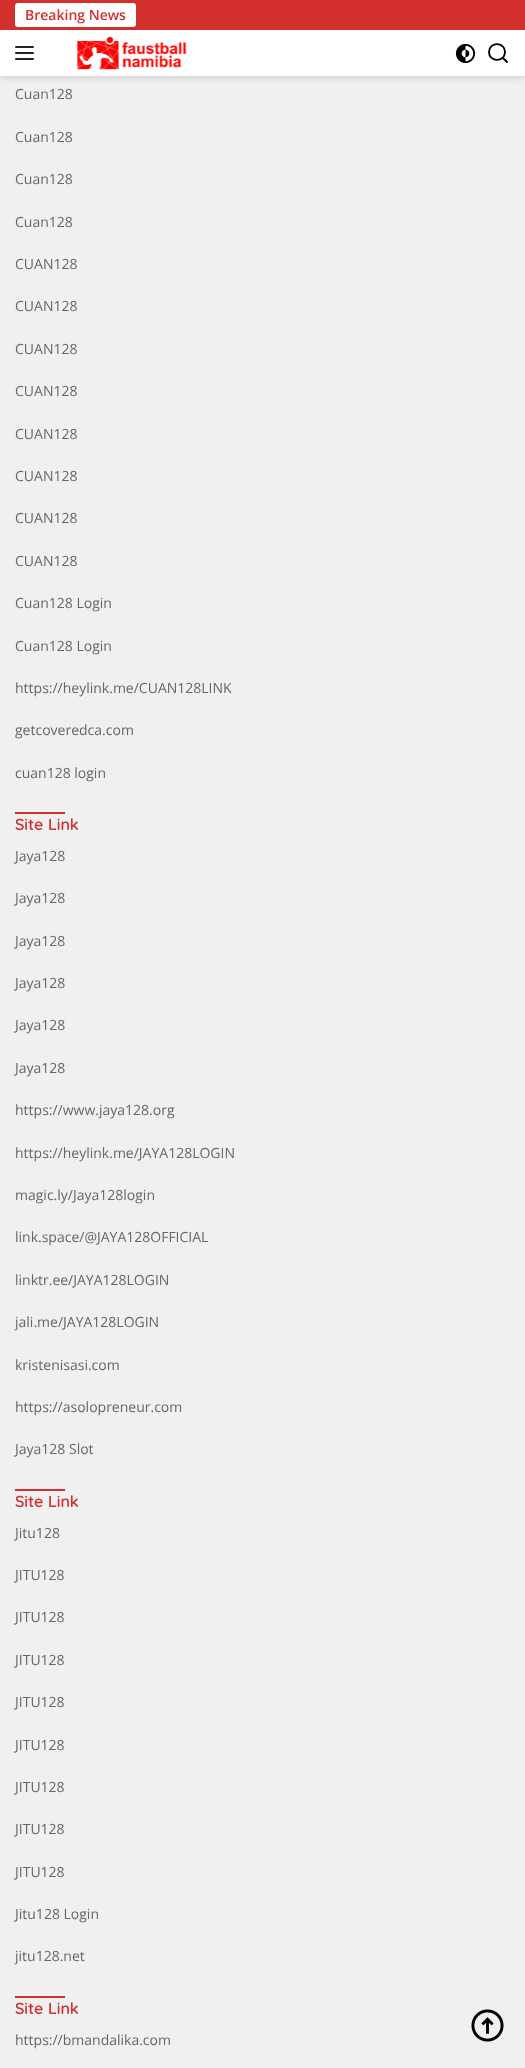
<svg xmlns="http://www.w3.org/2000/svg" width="525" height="2068">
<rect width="100%" height="100%" fill="#f0f0f0"/>
<rect width="525" height="76" fill="#00000033" filter="blur(5px)"/>
<rect y="30" width="525" height="46" fill="#fff"/>
<rect width="525" height="30" fill="#d32f2f"/>
<rect x="15" y="3" width="121" height="24" rx="3" fill="#fff"/>
<text x="25" y="20" style="font-family:Open Sans;font-size:14px;font-weight:600;fill:#d32f2f">Breaking News</text>
<rect x="15" y="46" width="19" height="2" rx="1" fill="#222"/>
<rect x="15" y="52" width="19" height="2" rx="1" fill="#222"/>
<rect x="15" y="58" width="19" height="2" rx="1" fill="#222"/>
<image x="77" y="36" width="110" height="34" href="media/1.png"/>
<image x="455" y="43" width="21" height="21" href="media/2.png"/>
<path d="M507 62l-4-4m2-6c0 10.5-16 10.5-16 0c0-10.5 16-10.5 16 0z" fill="none" stroke="#000" stroke-width="1.9" stroke-linecap="round"/>
<text x="15" y="99" style="font-family:Open Sans;font-size:14px;fill:#666">Cuan128</text>
<text x="15" y="142" style="font-family:Open Sans;font-size:14px;fill:#666">Cuan128</text>
<text x="15" y="184" style="font-family:Open Sans;font-size:14px;fill:#666">Cuan128</text>
<text x="15" y="227" style="font-family:Open Sans;font-size:14px;fill:#666">Cuan128</text>
<text x="15" y="269" style="font-family:Open Sans;font-size:14px;fill:#666">CUAN128</text>
<text x="15" y="311" style="font-family:Open Sans;font-size:14px;fill:#666">CUAN128</text>
<text x="15" y="354" style="font-family:Open Sans;font-size:14px;fill:#666">CUAN128</text>
<text x="15" y="396" style="font-family:Open Sans;font-size:14px;fill:#666">CUAN128</text>
<text x="15" y="439" style="font-family:Open Sans;font-size:14px;fill:#666">CUAN128</text>
<text x="15" y="481" style="font-family:Open Sans;font-size:14px;fill:#666">CUAN128</text>
<text x="15" y="523" style="font-family:Open Sans;font-size:14px;fill:#666">CUAN128</text>
<text x="15" y="566" style="font-family:Open Sans;font-size:14px;fill:#666">CUAN128</text>
<text x="15" y="608" style="font-family:Open Sans;font-size:14px;fill:#666">Cuan128 Login</text>
<text x="15" y="651" style="font-family:Open Sans;font-size:14px;fill:#666">Cuan128 Login</text>
<text x="15" y="693" style="font-family:Open Sans;font-size:14px;fill:#666">https://heylink.me/CUAN128LINK</text>
<text x="15" y="735" style="font-family:Open Sans;font-size:14px;fill:#666">getcoveredca.com</text>
<text x="15" y="778" style="font-family:Open Sans;font-size:14px;fill:#666">cuan128 login</text>
<rect x="15" y="812" width="50" height="2" fill="#d32f2f"/>
<text x="15" y="830" style="font-family:Quicksand;font-size:16px;font-weight:600;fill:#d32f2f">Site Link</text>
<text x="15" y="861" style="font-family:Open Sans;font-size:14px;fill:#666">Jaya128</text>
<text x="15" y="903" style="font-family:Open Sans;font-size:14px;fill:#666">Jaya128</text>
<text x="15" y="946" style="font-family:Open Sans;font-size:14px;fill:#666">Jaya128</text>
<text x="15" y="988" style="font-family:Open Sans;font-size:14px;fill:#666">Jaya128</text>
<text x="15" y="1030" style="font-family:Open Sans;font-size:14px;fill:#666">Jaya128</text>
<text x="15" y="1073" style="font-family:Open Sans;font-size:14px;fill:#666">Jaya128</text>
<text x="15" y="1115" style="font-family:Open Sans;font-size:14px;fill:#666">https://www.jaya128.org</text>
<text x="15" y="1158" style="font-family:Open Sans;font-size:14px;fill:#666">https://heylink.me/JAYA128LOGIN</text>
<text x="15" y="1200" style="font-family:Open Sans;font-size:14px;fill:#666">magic.ly/Jaya128login</text>
<text x="15" y="1242" style="font-family:Open Sans;font-size:14px;fill:#666">link.space/@JAYA128OFFICIAL</text>
<text x="15" y="1285" style="font-family:Open Sans;font-size:14px;fill:#666">linktr.ee/JAYA128LOGIN</text>
<text x="15" y="1327" style="font-family:Open Sans;font-size:14px;fill:#666">jali.me/JAYA128LOGIN</text>
<text x="15" y="1370" style="font-family:Open Sans;font-size:14px;fill:#666">kristenisasi.com</text>
<text x="15" y="1412" style="font-family:Open Sans;font-size:14px;fill:#666">https://asolopreneur.com</text>
<text x="15" y="1454" style="font-family:Open Sans;font-size:14px;fill:#666">Jaya128 Slot</text>
<rect x="15" y="1489" width="50" height="2" fill="#d32f2f"/>
<text x="15" y="1507" style="font-family:Quicksand;font-size:16px;font-weight:600;fill:#d32f2f">Site Link</text>
<text x="15" y="1538" style="font-family:Open Sans;font-size:14px;fill:#666">Jitu128</text>
<text x="15" y="1580" style="font-family:Open Sans;font-size:14px;fill:#666">JITU128</text>
<text x="15" y="1622" style="font-family:Open Sans;font-size:14px;fill:#666">JITU128</text>
<text x="15" y="1665" style="font-family:Open Sans;font-size:14px;fill:#666">JITU128</text>
<text x="15" y="1707" style="font-family:Open Sans;font-size:14px;fill:#666">JITU128</text>
<text x="15" y="1750" style="font-family:Open Sans;font-size:14px;fill:#666">JITU128</text>
<text x="15" y="1792" style="font-family:Open Sans;font-size:14px;fill:#666">JITU128</text>
<text x="15" y="1834" style="font-family:Open Sans;font-size:14px;fill:#666">JITU128</text>
<text x="15" y="1877" style="font-family:Open Sans;font-size:14px;fill:#666">JITU128</text>
<text x="15" y="1919" style="font-family:Open Sans;font-size:14px;fill:#666">Jitu128 Login</text>
<text x="15" y="1961" style="font-family:Open Sans;font-size:14px;fill:#666">jitu128.net</text>
<rect x="15" y="1996" width="50" height="2" fill="#d32f2f"/>
<text x="15" y="2014" style="font-family:Quicksand;font-size:16px;font-weight:600;fill:#d32f2f">Site Link</text>
<text x="15" y="2045" style="font-family:Open Sans;font-size:14px;fill:#666">https://bmandalika.com</text>
<image x="471" y="2009" width="33" height="33" href="media/3.png"/>
</svg>
